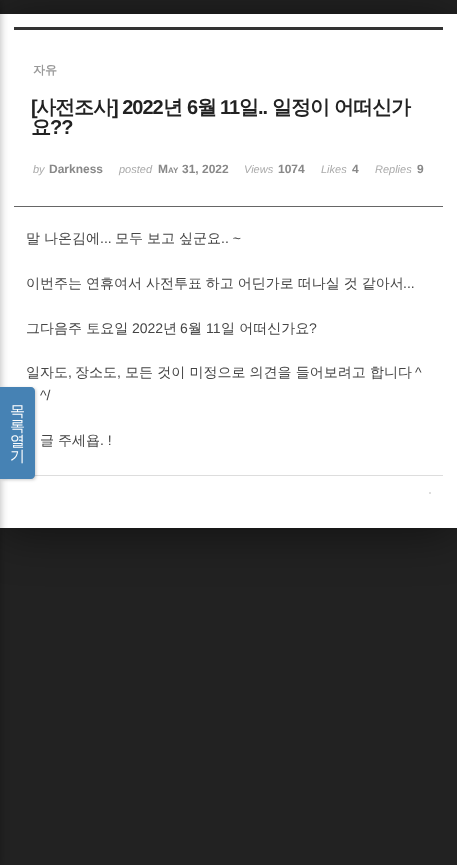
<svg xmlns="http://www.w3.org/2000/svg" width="457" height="865">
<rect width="100%" height="100%" fill="#222"/>
<rect y="18" width="457" height="514" fill="#00000080" filter="blur(24px)"/>
<rect y="14" width="457" height="514" fill="#fff"/>
<rect x="-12" width="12" height="865" fill="#0000004d" filter="blur(4px)"/>
<rect x="34" y="475" width="409" height="1" fill="#ddd"/>
<rect x="1" y="388" width="35" height="92" rx="4" fill="#00000033" filter="blur(1.5px)"/>
<path d="M0 387h31c2 0 4 2 4 4v84c0 2-2 4-4 4h-31z" fill="#4682b4"/>
<text x="10" y="416" style="font-family:WenQuanYi Zen Hei;font-size:15px;font-weight:500;fill:#fff">목</text>
<text x="10" y="431" style="font-family:WenQuanYi Zen Hei;font-size:15px;font-weight:500;fill:#fff">록</text>
<text x="10" y="446" style="font-family:WenQuanYi Zen Hei;font-size:15px;font-weight:500;fill:#fff">열</text>
<text x="10" y="461" style="font-family:WenQuanYi Zen Hei;font-size:15px;font-weight:500;fill:#fff">기</text>
<rect x="14" y="27" width="429" height="3" fill="#333"/>
<rect x="14" y="206" width="429" height="1" fill="#666"/>
<text x="33" y="74" style="font-family:WenQuanYi Zen Hei;font-size:12px;font-weight:bold;fill:#999">자유</text>
<text x="31" y="114" style="font-family:Liberation Sans;font-size:20px;font-weight:bold;letter-spacing:-1px;fill:#222">[</text>
<text x="36" y="114" style="font-family:WenQuanYi Zen Hei;font-size:20px;font-weight:bold;letter-spacing:-1px;fill:#222">사전조사</text>
<text x="112" y="114" style="font-family:Liberation Sans;font-size:20px;font-weight:bold;letter-spacing:-1px;fill:#222">] 2022</text>
<text x="163" y="114" style="font-family:WenQuanYi Zen Hei;font-size:20px;font-weight:bold;letter-spacing:-1px;fill:#222">년</text>
<text x="187" y="114" style="font-family:Liberation Sans;font-size:20px;font-weight:bold;letter-spacing:-1px;fill:#222">6</text>
<text x="197" y="114" style="font-family:WenQuanYi Zen Hei;font-size:20px;font-weight:bold;letter-spacing:-1px;fill:#222">월</text>
<text x="220" y="114" style="font-family:Liberation Sans;font-size:20px;font-weight:bold;letter-spacing:-1px;fill:#222">11</text>
<text x="239" y="114" style="font-family:WenQuanYi Zen Hei;font-size:20px;font-weight:bold;letter-spacing:-1px;fill:#222">일</text>
<text x="258" y="114" style="font-family:Liberation Sans;font-size:20px;font-weight:bold;letter-spacing:-1px;fill:#222">..</text>
<text x="272" y="114" style="font-family:WenQuanYi Zen Hei;font-size:20px;font-weight:bold;letter-spacing:-1px;fill:#222">일정이</text>
<text x="334" y="114" style="font-family:WenQuanYi Zen Hei;font-size:20px;font-weight:bold;letter-spacing:-1px;fill:#222">어떠신가</text>
<text x="31" y="134" style="font-family:WenQuanYi Zen Hei;font-size:20px;font-weight:bold;letter-spacing:-1px;fill:#222">요</text>
<text x="50" y="134" style="font-family:Liberation Sans;font-size:20px;font-weight:bold;letter-spacing:-1px;fill:#222">??</text>
<text x="33" y="173" style="font-family:Liberation Sans;font-size:11px;font-style:italic;fill:#aaa">by</text>
<text x="49" y="173" style="font-family:Liberation Sans;font-size:12px;font-weight:bold;fill:#888">Darkness</text>
<text x="119" y="173" style="font-family:Liberation Sans;font-size:11px;font-style:italic;fill:#aaa">posted</text>
<text x="158" y="173" style="font-family:Liberation Sans;font-size:12px;font-weight:bold;fill:#888">M</text>
<text x="168" y="173" style="font-family:Liberation Sans;font-size:8px;font-weight:bold;fill:#888">AY</text>
<text x="182" y="173" style="font-family:Liberation Sans;font-size:12px;font-weight:bold;fill:#888">31, 2022</text>
<text x="244" y="173" style="font-family:Liberation Sans;font-size:11px;font-style:italic;fill:#aaa">Views</text>
<text x="278" y="173" style="font-family:Liberation Sans;font-size:12px;font-weight:bold;fill:#888">1074</text>
<text x="321" y="173" style="font-family:Liberation Sans;font-size:11px;font-style:italic;fill:#aaa">Likes</text>
<text x="352" y="173" style="font-family:Liberation Sans;font-size:12px;font-weight:bold;fill:#888">4</text>
<text x="375" y="173" style="font-family:Liberation Sans;font-size:11px;font-style:italic;fill:#aaa">Replies</text>
<text x="417" y="173" style="font-family:Liberation Sans;font-size:12px;font-weight:bold;fill:#888">9</text>
<text x="26" y="243" style="font-family:WenQuanYi Zen Hei;font-size:14px;font-weight:500;fill:#444">말</text>
<text x="44" y="243" style="font-family:WenQuanYi Zen Hei;font-size:14px;font-weight:500;fill:#444">나온김에</text>
<text x="100" y="243" style="font-family:Liberation Sans;font-size:14px;fill:#444">...</text>
<text x="115" y="243" style="font-family:WenQuanYi Zen Hei;font-size:14px;font-weight:500;fill:#444">모두</text>
<text x="147" y="243" style="font-family:WenQuanYi Zen Hei;font-size:14px;font-weight:500;fill:#444">보고</text>
<text x="179" y="243" style="font-family:WenQuanYi Zen Hei;font-size:14px;font-weight:500;fill:#444">싶군요</text>
<text x="221" y="243" style="font-family:Liberation Sans;font-size:14px;fill:#444">.. ~</text>
<text x="26" y="288" word-spacing="-0.25" style="font-family:WenQuanYi Zen Hei;font-size:14px;font-weight:500;fill:#444">이번주는 연휴여서 사전투표 하고 어딘가로 떠나실 것 같아서</text>
<text x="403" y="288" style="font-family:Liberation Sans;font-size:14px;fill:#444">...</text>
<text x="26" y="333" style="font-family:WenQuanYi Zen Hei;font-size:14px;font-weight:500;fill:#444">그다음주 토요일</text>
<text x="132" y="333" style="font-family:Liberation Sans;font-size:14px;fill:#444">2022</text>
<text x="163" y="333" style="font-family:WenQuanYi Zen Hei;font-size:14px;font-weight:500;fill:#444">년</text>
<text x="180" y="333" style="font-family:Liberation Sans;font-size:14px;fill:#444">6</text>
<text x="188" y="333" style="font-family:WenQuanYi Zen Hei;font-size:14px;font-weight:500;fill:#444">월</text>
<text x="206" y="333" style="font-family:Liberation Sans;font-size:14px;fill:#444">11</text>
<text x="221" y="333" style="font-family:WenQuanYi Zen Hei;font-size:14px;font-weight:500;fill:#444">일 어떠신가요</text>
<text x="309" y="333" style="font-family:Liberation Sans;font-size:14px;fill:#444">?</text>
<text x="26" y="377" style="font-family:WenQuanYi Zen Hei;font-size:14px;font-weight:500;fill:#444">일자도</text>
<text x="75" y="377" style="font-family:WenQuanYi Zen Hei;font-size:14px;font-weight:500;fill:#444">장소도</text>
<text x="125" y="377" style="font-family:WenQuanYi Zen Hei;font-size:14px;font-weight:500;fill:#444">모든 것이 미정으로 의견을 들어보려고 합니다</text>
<text x="415" y="377" style="font-family:Liberation Sans;font-size:14px;fill:#444">^</text>
<text x="68" y="377" style="font-family:Liberation Sans;font-size:14px;fill:#444">,</text>
<text x="117" y="377" style="font-family:Liberation Sans;font-size:14px;fill:#444">,</text>
<text x="40" y="400" style="font-family:Liberation Sans;font-size:14px;fill:#444">^/</text>
<text x="40" y="445" style="font-family:WenQuanYi Zen Hei;font-size:14px;font-weight:500;fill:#444">글</text>
<text x="58" y="445" style="font-family:WenQuanYi Zen Hei;font-size:14px;font-weight:500;fill:#444">주세욥</text>
<text x="100" y="445" style="font-family:Liberation Sans;font-size:14px;fill:#444">. !</text>
<circle cx="430" cy="493" r="1" fill="#d3d3d3"/>
</svg>
